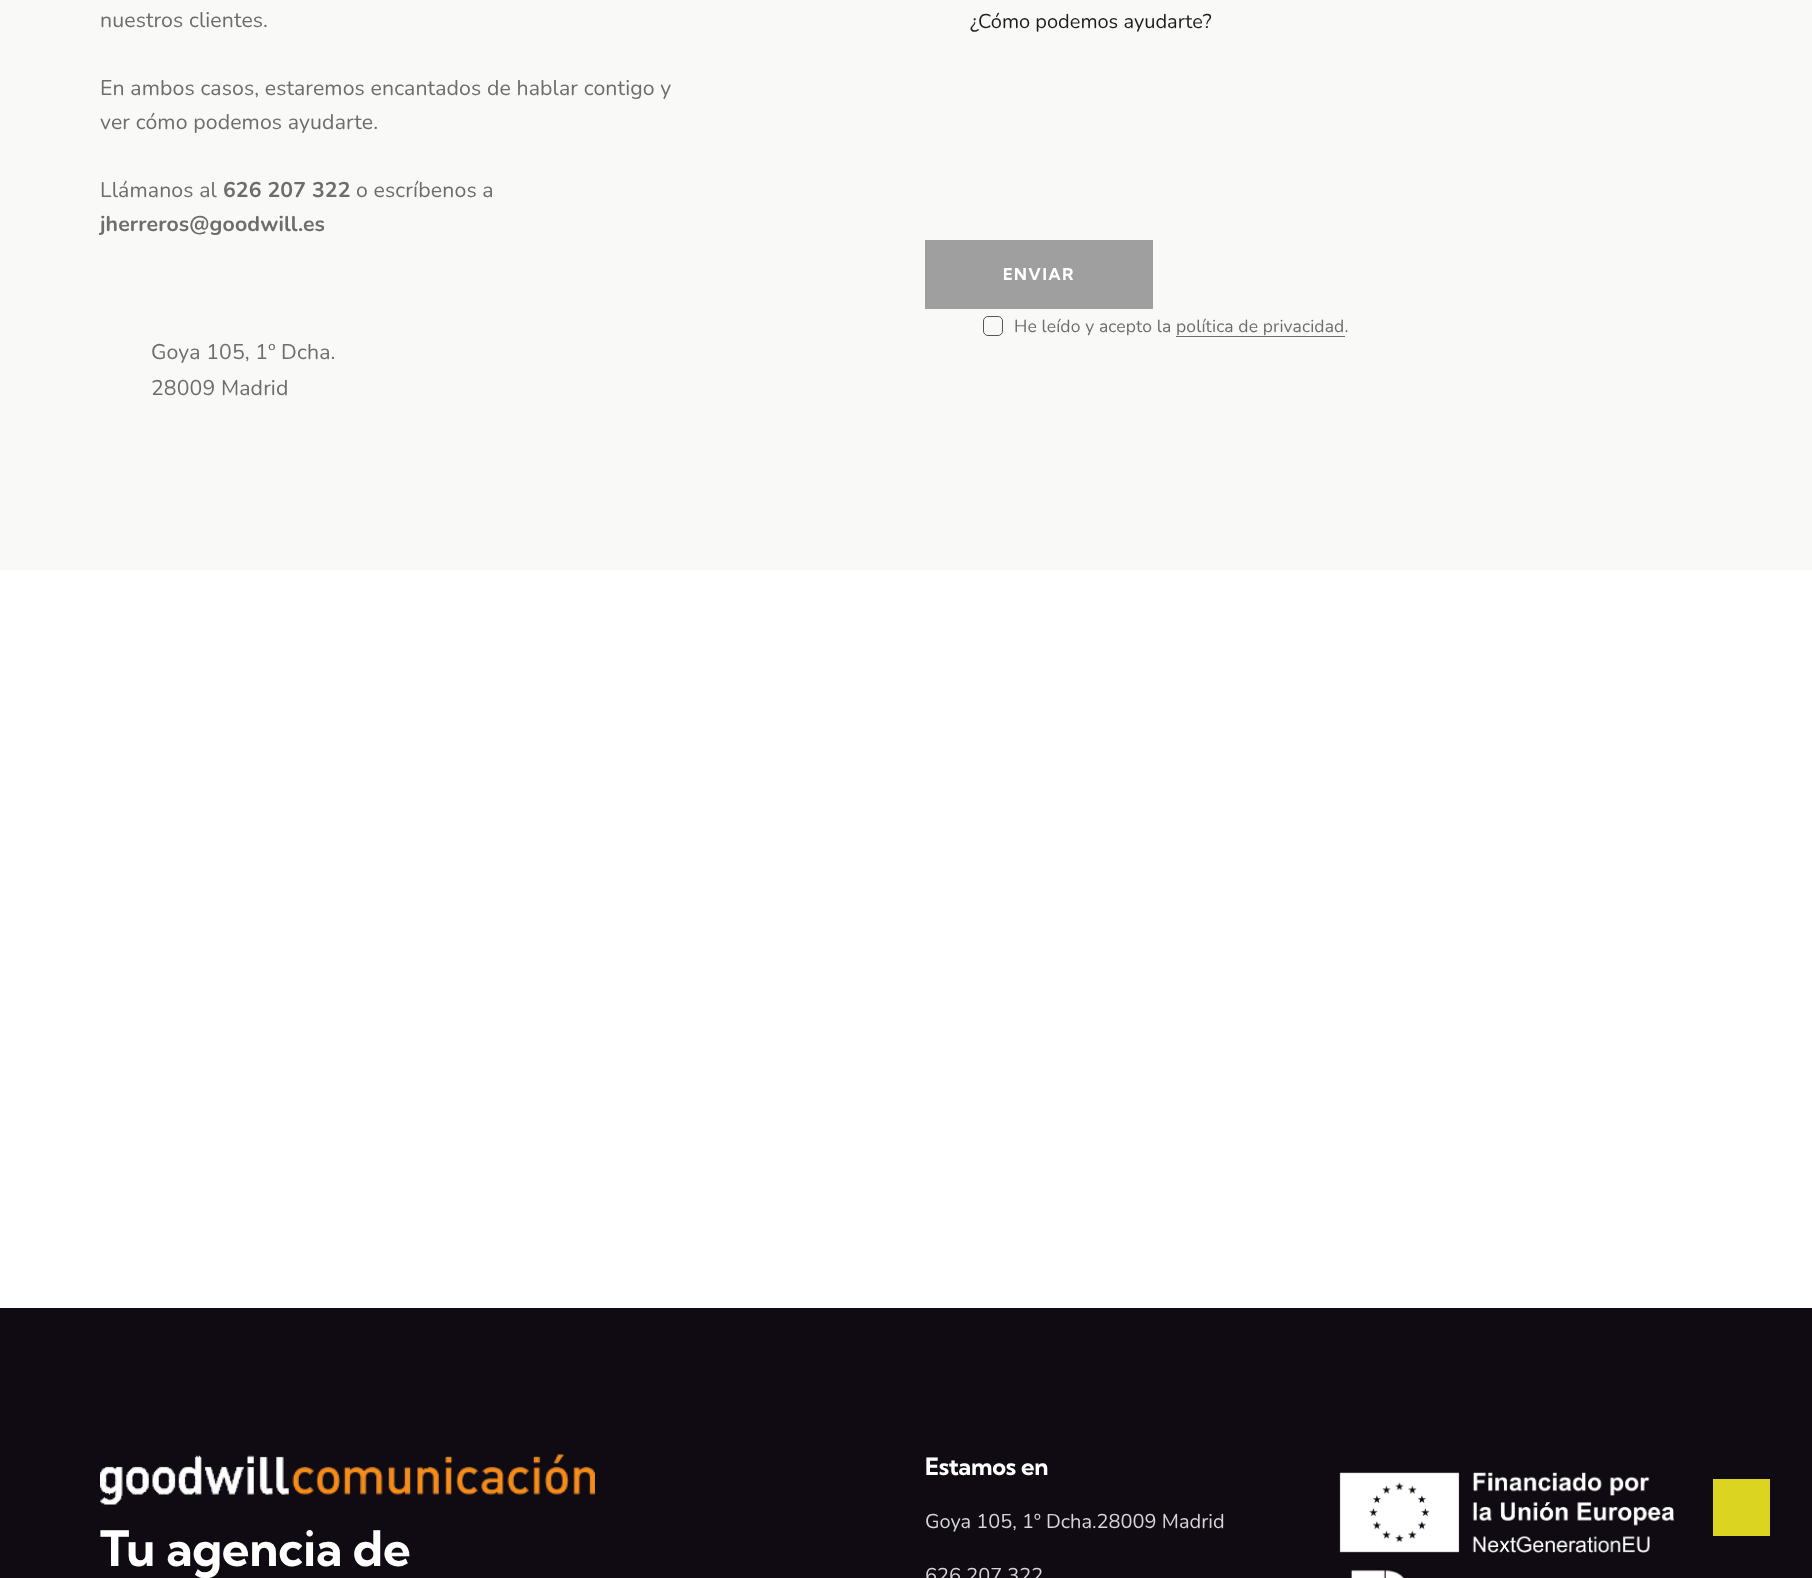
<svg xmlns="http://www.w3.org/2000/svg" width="1812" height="1578">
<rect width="100%" height="100%" fill="#f9f9f8"/>
<text x="100" y="27" style="font-family:Nunito;font-size:21.25px;letter-spacing:0.12px;fill:#6d6d6d">nuestros clientes.</text>
<text x="100" y="95" style="font-family:Nunito;font-size:21.25px;letter-spacing:0.12px;fill:#6d6d6d">En ambos casos, estaremos encantados de hablar contigo y</text>
<text x="100" y="129" style="font-family:Nunito;font-size:21.25px;letter-spacing:0.12px;fill:#6d6d6d">ver cómo podemos ayudarte.</text>
<text x="100" y="197" style="font-family:Nunito;font-size:21.25px;letter-spacing:0.12px;fill:#6d6d6d">Llámanos al</text>
<text x="223" y="197" style="font-family:Nunito;font-size:21.25px;font-weight:bold;letter-spacing:0.12px;fill:#6d6d6d">626 207 322</text>
<text x="356" y="197" style="font-family:Nunito;font-size:21.25px;letter-spacing:0.12px;fill:#6d6d6d">o escríbenos a</text>
<text x="100" y="231" style="font-family:Nunito;font-size:21.25px;font-weight:bold;letter-spacing:0.12px;fill:#6d6d6d">jherreros@goodwill.es</text>
<text x="151" y="359" style="font-family:Nunito;font-size:21.25px;letter-spacing:0.12px;fill:#6d6d6d">Goya 105, 1º Dcha.</text>
<text x="151" y="395" style="font-family:Nunito;font-size:21.25px;letter-spacing:0.12px;fill:#6d6d6d">28009 Madrid</text>
<text x="970" y="28" style="font-family:Nunito;font-size:20px;fill:#1d1d1d">¿Cómo podemos ayudarte?</text>
<rect x="925" y="240" width="228" height="69" fill="#9f9f9f"/>
<text x="1003" y="280" style="font-family:Kumbh Sans;font-size:16.25px;font-weight:bold;letter-spacing:1.5px;fill:#fff">ENVIAR</text>
<rect x="983.5" y="316.5" width="19" height="19" rx="4.5" fill="none" stroke="#58525b"/>
<text x="1014" y="332" style="font-family:Nunito;font-size:17.5px;letter-spacing:0.12px;fill:#6d6d6d">He leído y acepto la política de privacidad.</text>
<rect x="1176" y="336" width="169" height="1" fill="#6d6d6d"/>
<rect y="570" width="1812" height="738" fill="#fff"/>
<rect y="1308" width="1812" height="270" fill="#100a13"/>
<image x="100" y="1454" width="495" height="51" href="media/1.png"/>
<text x="100" y="1566" style="font-family:Kumbh Sans;font-size:48.75px;font-weight:bold;letter-spacing:-0.25px;fill:#fff">Tu agencia de</text>
<text x="925" y="1475" style="font-family:Kumbh Sans;font-size:23.75px;font-weight:bold;letter-spacing:-0.25px;fill:#fff">Estamos en</text>
<text x="925" y="1528" style="font-family:Nunito;font-size:20px;fill:#d6d5d6">Goya 105, 1º Dcha.28009 Madrid</text>
<text x="925" y="1582" style="font-family:Nunito;font-size:20px;fill:#d6d5d6">626 207 322</text>
<image x="1339" y="1472" width="335" height="106" href="media/2.png"/>
<rect x="1713" y="1479" width="57" height="57" fill="#dbd420"/>
</svg>
